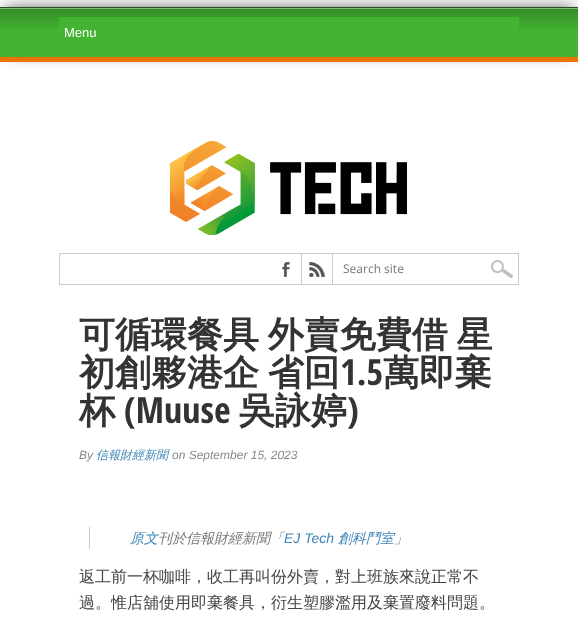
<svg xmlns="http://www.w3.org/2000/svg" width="578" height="619">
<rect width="100%" height="100%" fill="#fff"/>
<rect x="5" y="8" width="568" height="45" fill="#555" filter="blur(7.5px)"/>
<rect y="7" width="578" height="50" fill="#43b332"/>
<image x="0" y="7" width="578" height="23" href="media/1.png"/>
<rect y="57" width="578" height="5" fill="#ed7300"/>
<rect x="59" y="17" width="460" height="13" fill="#43b332"/>
<text x="64" y="37" style="font-family:Liberation Sans;font-size:13px;fill:#fff">Menu</text>
<image x="170" y="141" width="237" height="94" href="media/2.png"/>
<rect x="59.5" y="253.5" width="459" height="31" fill="none" stroke="#ccc"/>
<image x="282" y="262" width="8" height="15" href="media/3.png"/>
<rect x="301" y="254" width="1" height="30" fill="#ccc"/>
<image x="309" y="262" width="16" height="15" href="media/4.png"/>
<rect x="332" y="254" width="1" height="30" fill="#ccc"/>
<image x="491" y="260" width="22" height="18" href="media/5.png"/>
<text x="343" y="273" style="font-family:Open Sans;font-size:12px;fill:#777">Search site</text>
<text x="79" y="347" word-spacing="-2" style="font-family:WenQuanYi Zen Hei;font-size:36px;font-weight:bold;fill:#333">可循環餐具 外賣免費借 星</text>
<text x="79" y="385" word-spacing="-2" style="font-family:WenQuanYi Zen Hei;font-size:36px;font-weight:bold;fill:#333">初創夥港企 省回</text>
<text x="340" y="385" style="font-family:Open Sans Condensed;font-size:36px;font-weight:bold;fill:#333">1.5</text>
<text x="383" y="385" style="font-family:WenQuanYi Zen Hei;font-size:36px;font-weight:bold;fill:#333">萬即棄</text>
<text x="79" y="423" style="font-family:WenQuanYi Zen Hei;font-size:36px;font-weight:bold;fill:#333">杯</text>
<text x="124" y="423" style="font-family:Open Sans Condensed;font-size:36px;font-weight:bold;fill:#333">(Muuse</text>
<text x="239" y="423" style="font-family:WenQuanYi Zen Hei;font-size:36px;font-weight:bold;fill:#333">吳詠婷</text>
<text x="347" y="423" style="font-family:Open Sans Condensed;font-size:36px;font-weight:bold;fill:#333">)</text>
<text x="79" y="459" style="font-family:Liberation Sans;font-size:12px;font-style:italic;fill:#888">By</text>
<text x="96" y="459" style="font-family:WenQuanYi Zen Hei;font-size:12px;font-weight:500;font-style:italic;fill:#3e85b8">信報財經新聞</text>
<text x="172" y="459" style="font-family:Liberation Sans;font-size:12px;font-style:italic;fill:#888">on September 15, 2023</text>
<rect x="89" y="527" width="1" height="22" fill="#ccc"/>
<text x="130" y="543" style="font-family:WenQuanYi Zen Hei;font-size:14px;font-weight:500;font-style:italic;fill:#3e85b8">原文</text>
<text x="158" y="543" style="font-family:WenQuanYi Zen Hei;font-size:14px;font-weight:500;font-style:italic;fill:#777">刊於信報財經新聞「</text>
<text x="284" y="543" style="font-family:Liberation Sans;font-size:14px;font-style:italic;fill:#3e85b8">EJ Tech</text>
<text x="338" y="543" style="font-family:WenQuanYi Zen Hei;font-size:14px;font-weight:500;font-style:italic;fill:#3e85b8">創科鬥室</text>
<text x="394" y="543" style="font-family:WenQuanYi Zen Hei;font-size:14px;font-weight:500;font-style:italic;fill:#777">」</text>
<text x="79" y="582" style="font-family:WenQuanYi Zen Hei;font-size:16px;font-weight:500;fill:#444">返工前一杯咖啡，收工再叫份外賣，對上班族來說正常不</text>
<text x="79" y="608" style="font-family:WenQuanYi Zen Hei;font-size:16px;font-weight:500;fill:#444">過。惟店舖使用即棄餐具，衍生塑膠濫用及棄置廢料問題。</text>
</svg>
